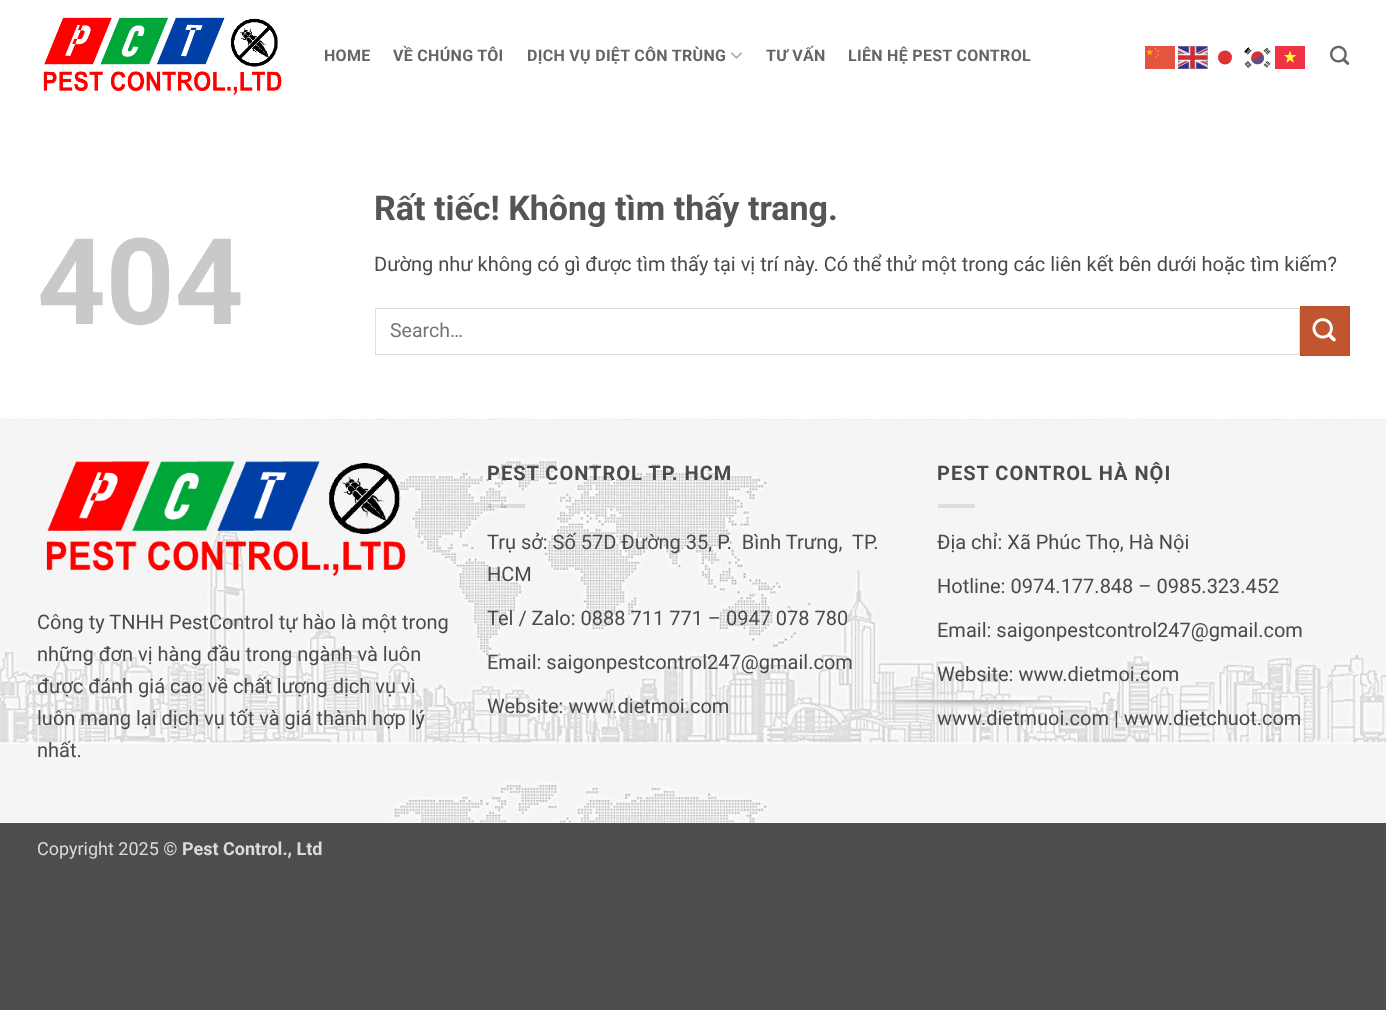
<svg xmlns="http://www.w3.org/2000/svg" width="1386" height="1010">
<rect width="100%" height="100%" fill="#4d4d4d"/>
<rect width="1386" height="823" fill="#fff"/>
<image x="43" y="17" width="239" height="78" href="media/1.png"/>
<text x="324" y="61" style="font-family:Roboto;font-size:16px;font-weight:bold;letter-spacing:0.3px;fill:#656565">HOME</text>
<text x="393" y="61" style="font-family:Roboto;font-size:16px;font-weight:bold;letter-spacing:0.3px;fill:#656565">VỀ CHÚNG TÔI</text>
<text x="527" y="61" style="font-family:Roboto;font-size:16px;font-weight:bold;letter-spacing:0.3px;fill:#656565">DỊCH VỤ DIỆT CÔN TRÙNG</text>
<image x="730" y="52" width="12" height="7" href="media/2.png"/>
<text x="766" y="61" style="font-family:Roboto;font-size:16px;font-weight:bold;letter-spacing:0.3px;fill:#656565">TƯ VẤN</text>
<text x="848" y="61" style="font-family:Roboto;font-size:16px;font-weight:bold;letter-spacing:0.3px;fill:#656565">LIÊN HỆ PEST CONTROL</text>
<image x="1145" y="46" width="30" height="23" href="media/3.png"/>
<image x="1178" y="46" width="30" height="23" href="media/4.png"/>
<circle cx="1225" cy="57.5" r="7" fill="#dc3333"/>
<image x="1244" y="47" width="27" height="21" href="media/5.png"/>
<rect x="1275" y="46" width="30" height="23" fill="#f03344"/>
<path d="M1294 63l-4-3l-3.5 3l1-5l-3.5-3h4.5l1.5-4.5l1.5 4.5h5l-4 3z" fill="#ff3" fill-rule="evenodd"/>
<image x="1330" y="45" width="20" height="20" href="media/6.png"/>
<text x="37" y="324" style="font-family:Roboto;font-size:120px;font-weight:bold;fill:#c9c9c9">404</text>
<text x="374" y="220" style="font-family:Roboto;font-size:34px;font-weight:bold;fill:#555">Rất tiếc! Không tìm thấy trang.</text>
<text x="374" y="271" style="font-family:Roboto;font-size:20px;fill:#4a4a4a">Dường như không có gì được tìm thấy tại vị trí này. Có thể thử một trong các liên kết bên dưới hoặc tìm kiếm?</text>
<rect x="375.5" y="308.5" width="924" height="46" fill="none" stroke="#ddd"/>
<text x="390" y="337" style="font-family:Roboto;font-size:19.5px;fill:#757575">Search…</text>
<rect x="1300.5" y="306.5" width="49" height="49" fill="#c05530" stroke="#b6512e"/>
<image x="1312" y="318" width="24" height="24" href="media/7.png"/>
<image x="0" y="418" width="1386" height="405" href="media/8.png"/>
<rect y="419" width="1386" height="1" fill="#0000000d"/>
<image x="46" y="461" width="360" height="115" href="media/9.png"/>
<text x="37" y="629" style="font-family:Roboto;font-size:20px;fill:#4a4a4a">Công ty TNHH PestControl tự hào là một trong</text>
<text x="37" y="661" style="font-family:Roboto;font-size:20px;fill:#4a4a4a">những đơn vị hàng đầu trong ngành và luôn</text>
<text x="37" y="693" style="font-family:Roboto;font-size:20px;fill:#4a4a4a">được đánh giá cao về chất lượng dịch vụ vì</text>
<text x="37" y="725" style="font-family:Roboto;font-size:20px;fill:#4a4a4a">luôn mang lại dịch vụ tốt và giá thành hợp lý</text>
<text x="37" y="757" style="font-family:Roboto;font-size:20px;fill:#4a4a4a">nhất.</text>
<text x="487" y="480" style="font-family:Roboto;font-size:20px;font-weight:bold;letter-spacing:1px;fill:#4a4a4a">PEST CONTROL TP. HCM</text>
<rect x="488" y="504" width="37" height="4" fill="#0000001a"/>
<text x="487" y="549" style="font-family:Roboto;font-size:20px;fill:#4a4a4a" xml:space="preserve">Trụ sở: Số 57D Đường 35, P.  Bình Trưng,  TP.</text>
<text x="487" y="581" style="font-family:Roboto;font-size:20px;fill:#4a4a4a">HCM</text>
<text x="487" y="625" style="font-family:Roboto;font-size:20px;fill:#4a4a4a">Tel / Zalo: 0888 711 771 – 0947 078 780</text>
<text x="487" y="669" style="font-family:Roboto;font-size:20px;fill:#4a4a4a">Email: saigonpestcontrol247@gmail.com</text>
<text x="487" y="713" style="font-family:Roboto;font-size:20px;fill:#4a4a4a">Website: www.dietmoi.com</text>
<text x="937" y="480" style="font-family:Roboto;font-size:20px;font-weight:bold;letter-spacing:1px;fill:#4a4a4a">PEST CONTROL HÀ NỘI</text>
<rect x="938" y="504" width="37" height="4" fill="#ddd"/>
<text x="937" y="549" style="font-family:Roboto;font-size:20px;fill:#4a4a4a">Địa chỉ: Xã Phúc Thọ, Hà Nội</text>
<text x="937" y="593" style="font-family:Roboto;font-size:20px;fill:#4a4a4a">Hotline: 0974.177.848 – 0985.323.452</text>
<text x="937" y="637" style="font-family:Roboto;font-size:20px;fill:#4a4a4a">Email: saigonpestcontrol247@gmail.com</text>
<text x="937" y="681" style="font-family:Roboto;font-size:20px;fill:#4a4a4a">Website: www.dietmoi.com</text>
<text x="937" y="725" style="font-family:Roboto;font-size:20px;fill:#4a4a4a">www.dietmuoi.com | www.dietchuot.com</text>
<text x="37" y="855" style="font-family:Roboto;font-size:18px;fill:#dbdbdb">Copyright 2025 ©</text>
<text x="182" y="855" style="font-family:Roboto;font-size:18px;font-weight:bold;fill:#dbdbdb">Pest Control., Ltd</text>
</svg>
